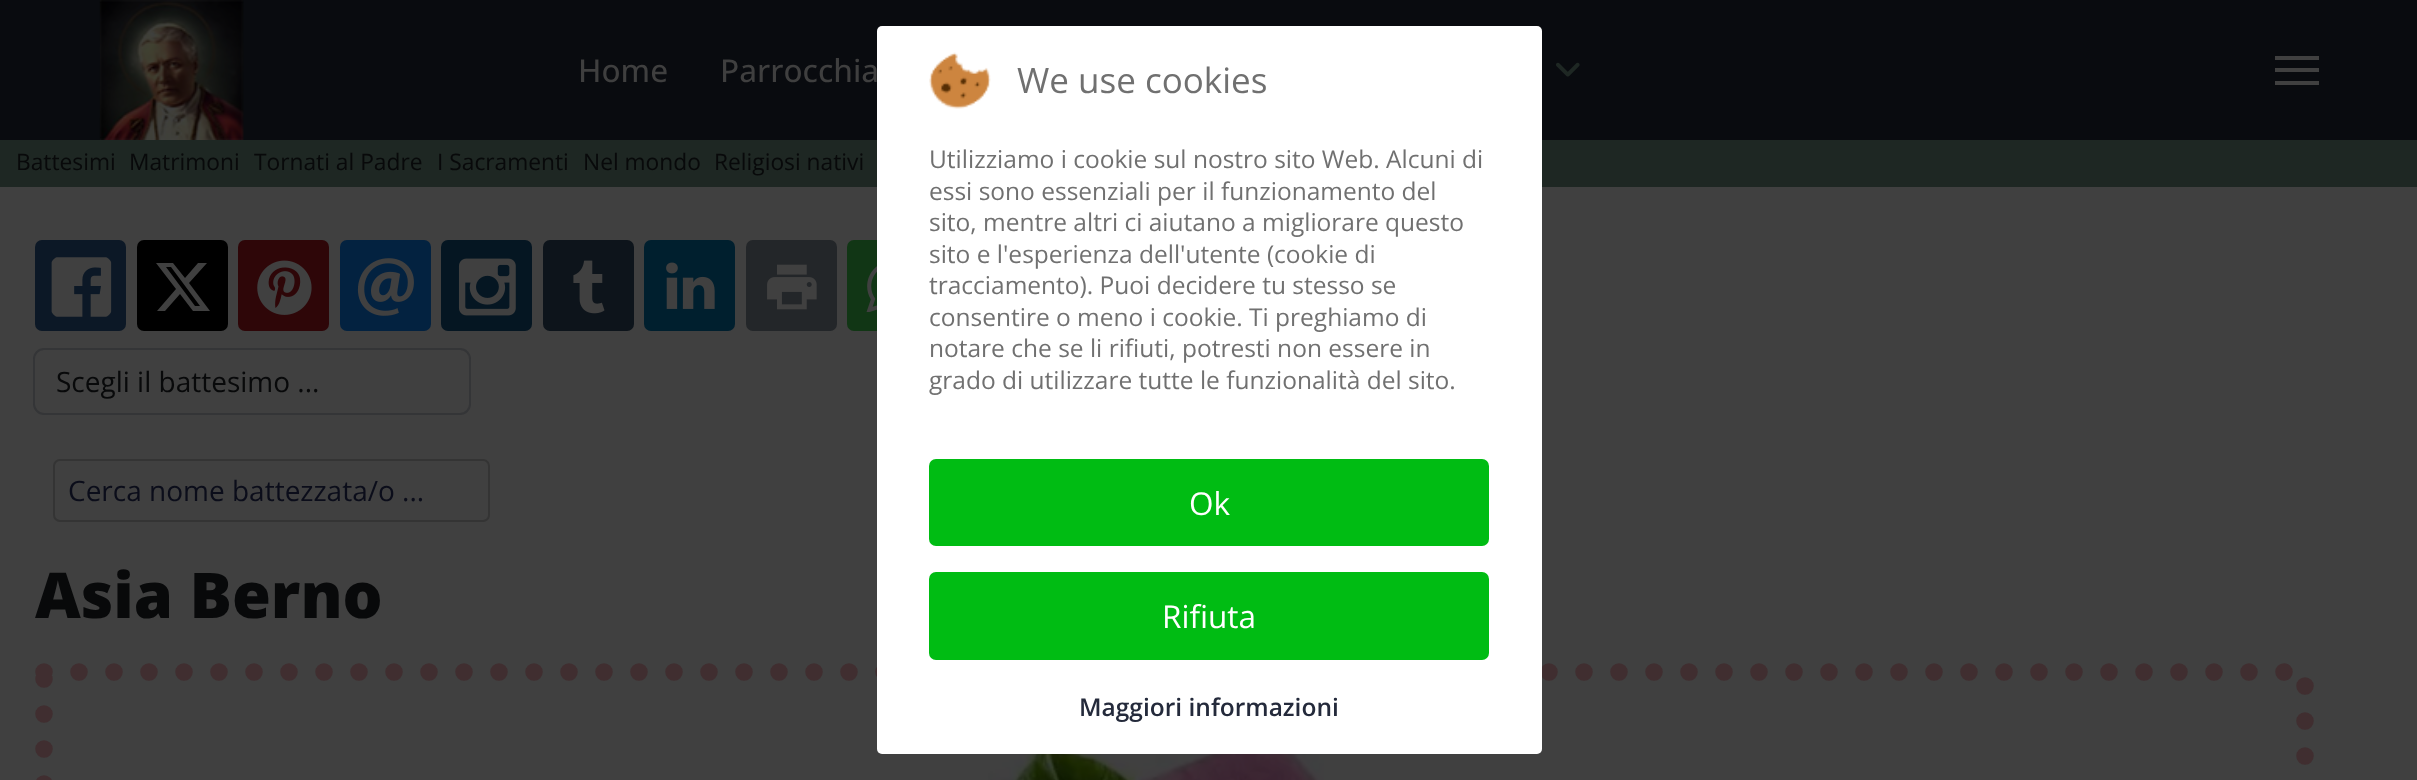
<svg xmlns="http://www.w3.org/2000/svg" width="2417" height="780">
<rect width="100%" height="100%" fill="#404040"/>
<rect width="2417" height="140" fill="#090b0f"/>
<image x="99" y="0" width="145" height="140" href="media/1.png"/>
<text x="578" y="82" style="font-family:Open Sans;font-size:31.5px;font-weight:500;fill:#3f3f3f">Home</text>
<text x="720" y="82" style="font-family:Open Sans;font-size:31.5px;font-weight:500;fill:#3f3f3f">Parrocchia</text>
<image x="1556" y="62" width="24" height="15" href="media/2.png"/>
<rect x="2275" y="56" width="44" height="4" fill="#404040"/>
<rect x="2275" y="68" width="44" height="4" fill="#404040"/>
<rect x="2275" y="81" width="44" height="4" fill="#404040"/>
<rect y="140" width="2417" height="47" fill="#1e2723"/>
<text x="16" y="170" style="font-family:Open Sans;font-size:22.75px;fill:#08090a">Battesimi</text>
<text x="129" y="170" style="font-family:Open Sans;font-size:22.75px;fill:#08090a">Matrimoni</text>
<text x="254" y="170" style="font-family:Open Sans;font-size:22.75px;fill:#08090a">Tornati al Padre</text>
<text x="437" y="170" style="font-family:Open Sans;font-size:22.75px;fill:#08090a">I Sacramenti</text>
<text x="583" y="170" style="font-family:Open Sans;font-size:22.75px;fill:#08090a">Nel mondo</text>
<text x="714" y="170" style="font-family:Open Sans;font-size:22.75px;fill:#08090a">Religiosi nativi</text>
<rect x="35" y="240" width="91" height="91" rx="7" fill="#0c1826"/>
<image x="51" y="257" width="61" height="60" href="media/3.png"/>
<rect x="137" y="240" width="91" height="91" rx="7" fill="#000"/>
<path d="M198 263h9l-18 20l21 28h-17l-13-17l-15 17h-8l19-22l-20-26h17l12 15zm-3 43h5l-29-39h-5z" fill="#404040"/>
<rect x="238" y="240" width="91" height="91" rx="7" fill="#2e0608"/>
<image x="257" y="260" width="55" height="55" href="media/4.png"/>
<rect x="340" y="240" width="91" height="91" rx="7" fill="#032240"/>
<image x="357" y="258" width="57" height="58" href="media/5.png"/>
<rect x="441" y="240" width="91" height="91" rx="7" fill="#051622"/>
<image x="458" y="258" width="58" height="58" href="media/6.png"/>
<rect x="543" y="240" width="91" height="91" rx="7" fill="#0d141b"/>
<image x="573" y="260" width="32" height="54" href="media/7.png"/>
<rect x="644" y="240" width="91" height="91" rx="7" fill="#001f2e"/>
<image x="666" y="262" width="49" height="47" href="media/8.png"/>
<rect x="746" y="240" width="91" height="91" rx="7" fill="#232629"/>
<image x="767" y="264" width="50" height="46" href="media/9.png"/>
<rect x="847" y="240" width="91" height="91" rx="7" fill="#113615"/>
<image x="866" y="266" width="11" height="46" href="media/10.png"/>
<rect x="34" y="349" width="436" height="65" rx="10" fill="none" stroke="#343537" stroke-width="2"/>
<text x="56" y="392" style="font-family:Open Sans;font-size:28px;fill:#08090a">Scegli il battesimo ...</text>
<rect x="54" y="460" width="435" height="61" rx="6" fill="none" stroke="#343434" stroke-width="2"/>
<text x="68" y="501" style="font-family:Open Sans;font-size:28px;fill:#0b0d1a">Cerca nome battezzata/o ...</text>
<text x="35" y="618" style="font-family:Open Sans;font-size:63px;font-weight:800;fill:#08090a">Asia Berno</text>
<path d="M44 672h2261v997.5h-2261z" fill="none" stroke="#402e30" stroke-width="17.5" stroke-linecap="round" stroke-dasharray="0 35"/>
<image x="988" y="754" width="336" height="26" href="media/11.png"/>
<rect x="877" y="26" width="665" height="728" rx="5" fill="#fff"/>
<image x="929" y="52" width="62" height="57" href="media/12.png"/>
<text x="1017" y="93" style="font-family:Open Sans;font-size:35px;fill:#707070">We use cookies</text>
<text x="929" y="168" style="font-family:Open Sans;font-size:24.5px;fill:#707070">Utilizziamo i cookie sul nostro sito Web. Alcuni di</text>
<text x="929" y="200" style="font-family:Open Sans;font-size:24.5px;fill:#707070">essi sono essenziali per il funzionamento del</text>
<text x="929" y="231" style="font-family:Open Sans;font-size:24.5px;fill:#707070">sito, mentre altri ci aiutano a migliorare questo</text>
<text x="929" y="263" style="font-family:Open Sans;font-size:24.5px;fill:#707070">sito e l'esperienza dell'utente (cookie di</text>
<text x="929" y="294" style="font-family:Open Sans;font-size:24.5px;fill:#707070">tracciamento). Puoi decidere tu stesso se</text>
<text x="929" y="326" style="font-family:Open Sans;font-size:24.5px;fill:#707070">consentire o meno i cookie. Ti preghiamo di</text>
<text x="929" y="357" style="font-family:Open Sans;font-size:24.5px;fill:#707070">notare che se li rifiuti, potresti non essere in</text>
<text x="929" y="389" style="font-family:Open Sans;font-size:24.5px;fill:#707070">grado di utilizzare tutte le funzionalità del sito.</text>
<rect x="929" y="459" width="560" height="87" rx="7" fill="#00bc13"/>
<text x="1189" y="515" style="font-family:Open Sans;font-size:31.5px;fill:#fff">Ok</text>
<rect x="929" y="572" width="560" height="88" rx="7" fill="#00bc13"/>
<text x="1162" y="628" style="font-family:Open Sans;font-size:31.5px;fill:#fff">Rifiuta</text>
<text x="1079" y="716" style="font-family:Open Sans;font-size:24.5px;font-weight:600;fill:#242a3b">Maggiori informazioni</text>
</svg>
